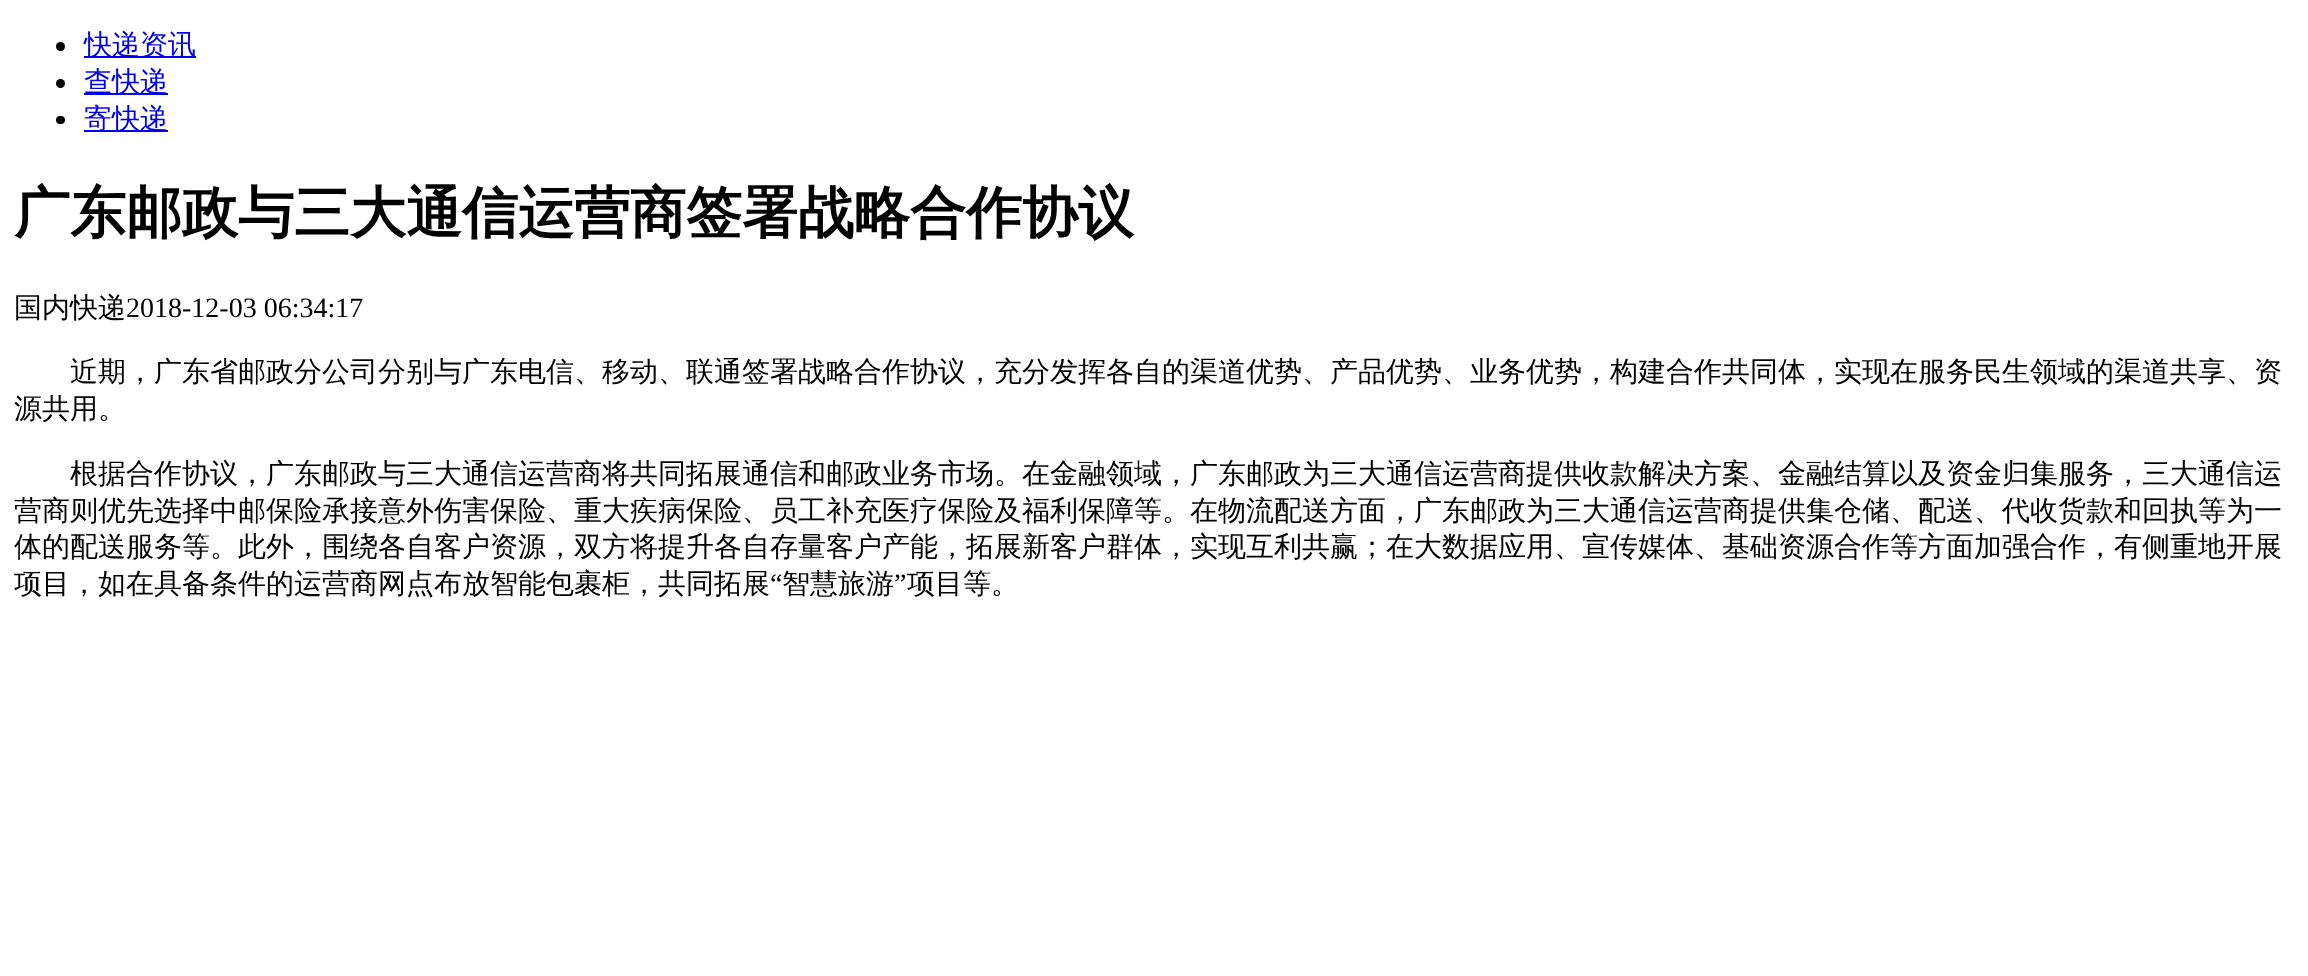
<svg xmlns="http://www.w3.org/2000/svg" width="2308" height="976">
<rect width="100%" height="100%" fill="#fff"/>
<circle cx="60.5" cy="46.5" r="4.5" fill="#000"/>
<rect x="84" y="56" width="112" height="2" fill="#00e"/>
<text x="84" y="54" style="font-family:WenQuanYi Zen Hei;font-size:28px;font-weight:500;fill:#00e">快递资讯</text>
<circle cx="60.5" cy="83.5" r="4.5" fill="#000"/>
<rect x="84" y="93" width="84" height="2" fill="#00e"/>
<text x="84" y="91" style="font-family:WenQuanYi Zen Hei;font-size:28px;font-weight:500;fill:#00e">查快递</text>
<rect x="56" y="116" width="9" height="8" rx="4" fill="#000"/>
<rect x="84" y="130" width="84" height="2" fill="#00e"/>
<text x="84" y="128" style="font-family:WenQuanYi Zen Hei;font-size:28px;font-weight:500;fill:#00e">寄快递</text>
<text x="14" y="232" style="font-family:WenQuanYi Zen Hei;font-size:56px;font-weight:bold;fill:#000">广东邮政与三大通信运营商签署战略合作协议</text>
<text x="14" y="317" style="font-family:WenQuanYi Zen Hei;font-size:28px;font-weight:500;fill:#000">国内快递</text>
<text x="126" y="317" style="font-family:Liberation Serif;font-size:28px;fill:#000">2018-12-03 06:34:17</text>
<text x="70" y="381" style="font-family:WenQuanYi Zen Hei;font-size:28px;font-weight:500;fill:#000">近期，广东省邮政分公司分别与广东电信、移动、联通签署战略合作协议，充分发挥各自的渠道优势、产品优势、业务优势，构建合作共同体，实现在服务民生领域的渠道共享、资</text>
<text x="14" y="418" style="font-family:WenQuanYi Zen Hei;font-size:28px;font-weight:500;fill:#000">源共用。</text>
<text x="70" y="483" style="font-family:WenQuanYi Zen Hei;font-size:28px;font-weight:500;fill:#000">根据合作协议，广东邮政与三大通信运营商将共同拓展通信和邮政业务市场。在金融领域，广东邮政为三大通信运营商提供收款解决方案、金融结算以及资金归集服务，三大通信运</text>
<text x="14" y="520" style="font-family:WenQuanYi Zen Hei;font-size:28px;font-weight:500;fill:#000">营商则优先选择中邮保险承接意外伤害保险、重大疾病保险、员工补充医疗保险及福利保障等。在物流配送方面，广东邮政为三大通信运营商提供集仓储、配送、代收货款和回执等为一</text>
<text x="14" y="556" style="font-family:WenQuanYi Zen Hei;font-size:28px;font-weight:500;fill:#000">体的配送服务等。此外，围绕各自客户资源，双方将提升各自存量客户产能，拓展新客户群体，实现互利共赢；在大数据应用、宣传媒体、基础资源合作等方面加强合作，有侧重地开展</text>
<text x="14" y="593" style="font-family:WenQuanYi Zen Hei;font-size:28px;font-weight:500;fill:#000">项目，如在具备条件的运营商网点布放智能包裹柜，共同拓展</text>
<text x="770" y="593" style="font-family:Liberation Serif;font-size:28px;fill:#000">“</text>
<text x="782" y="593" style="font-family:WenQuanYi Zen Hei;font-size:28px;font-weight:500;fill:#000">智慧旅游</text>
<text x="894" y="593" style="font-family:Liberation Serif;font-size:28px;fill:#000">”</text>
<text x="907" y="593" style="font-family:WenQuanYi Zen Hei;font-size:28px;font-weight:500;fill:#000">项目等。</text>
</svg>
